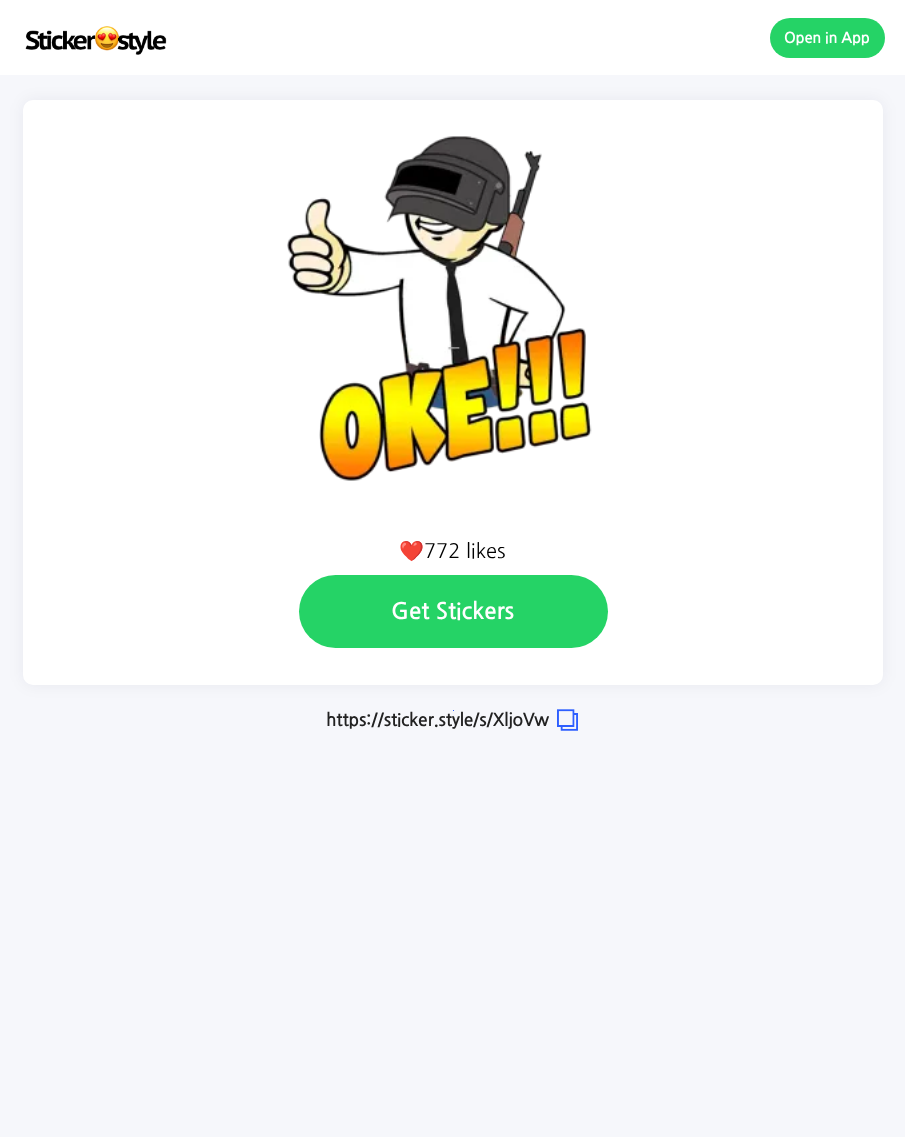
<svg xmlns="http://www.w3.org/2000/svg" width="905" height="1137">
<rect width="100%" height="100%" fill="#f6f7fb"/>
<rect width="905" height="75" fill="#fff"/>
<image x="25" y="26" width="142" height="29" href="media/1.png"/>
<rect x="770" y="18" width="115" height="40" rx="20" fill="#25d366"/>
<text x="784" y="43" style="font-family:NanumGothic;font-size:15px;font-weight:bold;letter-spacing:-0.25px;fill:#fff">Open in App</text>
<rect x="23" y="100" width="860" height="585" rx="10" fill="#050d270f" filter="blur(7.5px)"/>
<rect x="23" y="100" width="860" height="585" rx="10" fill="#fff"/>
<image x="287" y="136" width="305" height="345" href="media/2.png"/>
<text x="399" y="558" style="font-family:Noto Color Emoji;font-size:20px;fill:#000">❤️</text>
<text x="424" y="558" style="font-family:NanumGothic;font-size:20px;fill:#000">772 likes</text>
<rect x="299" y="575" width="309" height="73" rx="36.5" fill="#25d366"/>
<text x="391" y="619" style="font-family:NanumGothic;font-size:22.5px;font-weight:bold;fill:#fff">Get Stickers</text>
<rect x="453" y="710" width="1" height="1" fill="#2e5fff"/>
<text x="326" y="726" style="font-family:NanumGothic;font-size:17.5px;font-weight:bold;letter-spacing:-0.25px;fill:#222">https://sticker.style/s/XljoVw</text>
<image x="557" y="709" width="21" height="22" href="media/3.png"/>
</svg>
